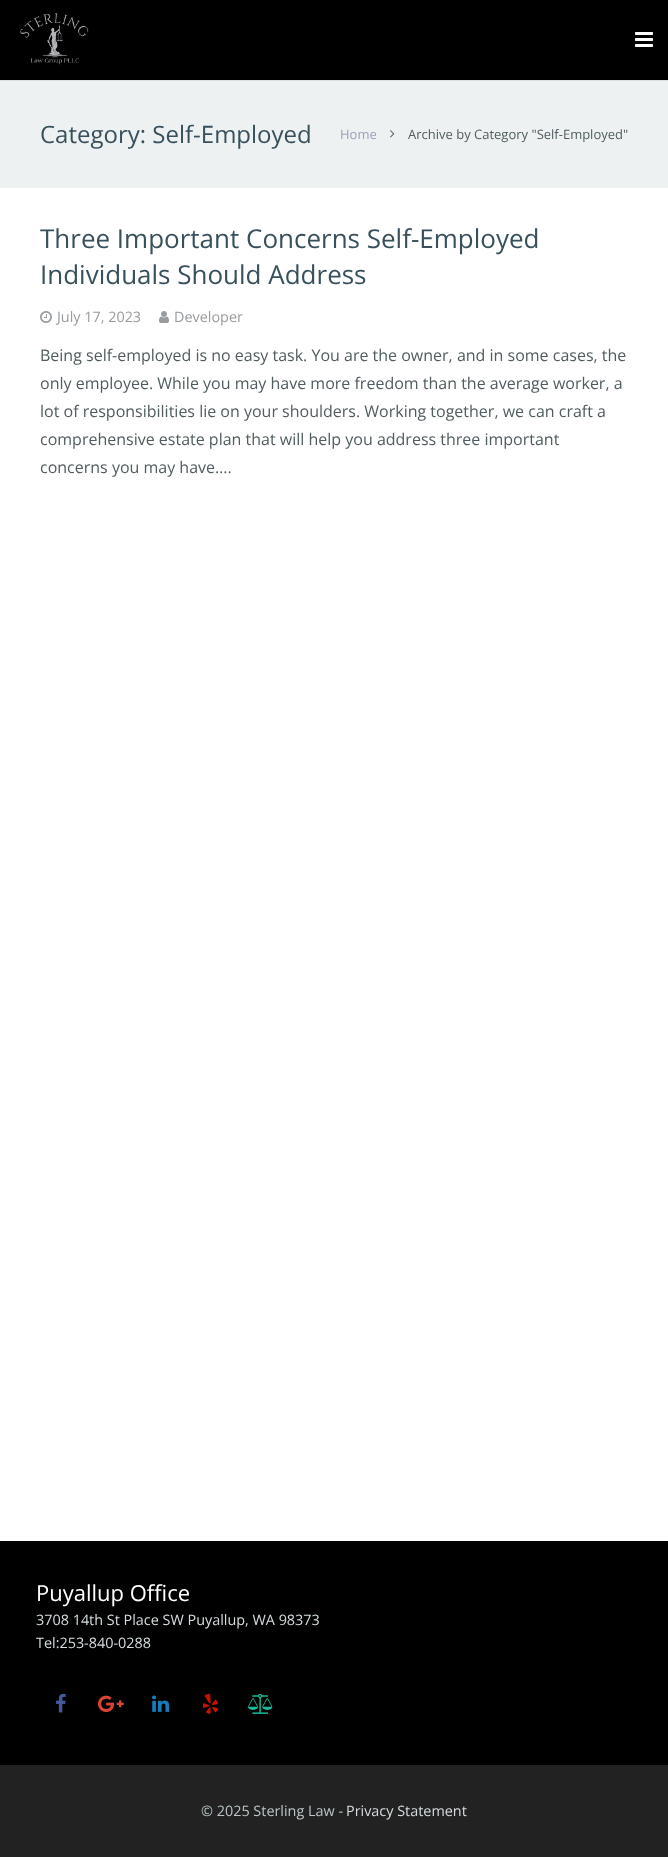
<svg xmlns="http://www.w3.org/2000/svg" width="668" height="1857">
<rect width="100%" height="100%" fill="#fff"/>
<rect y="80" width="668" height="1" fill="#dadedf"/>
<rect width="668" height="80" fill="#000"/>
<image x="20" y="13" width="69" height="52" href="media/1.png"/>
<image x="635" y="32" width="18" height="15" href="media/2.png"/>
<rect y="81" width="668" height="107" fill="#edf1f2"/>
<text x="40" y="143" style="font-family:Open Sans;font-size:24px;fill:#38505c">Category: Self-Employed</text>
<text x="340" y="139" style="font-family:Open Sans;font-size:13px;fill:#9ea1ba">Home</text>
<image x="390" y="130" width="5" height="8" href="media/3.png"/>
<text x="408" y="139" style="font-family:Open Sans;font-size:13px;fill:#505c5f">Archive by Category "Self-Employed"</text>
<text x="40" y="248" style="font-family:Open Sans;font-size:26px;fill:#38505c">Three Important Concerns Self-Employed</text>
<text x="40" y="284" style="font-family:Open Sans;font-size:26px;fill:#38505c">Individuals Should Address</text>
<image x="40" y="311" width="12" height="12" href="media/4.png"/>
<text x="57" y="322" style="font-family:Open Sans;font-size:14.4px;fill:#999c9f">July 17, 2023</text>
<image x="159" y="311" width="10" height="12" href="media/5.png"/>
<text x="174" y="322" style="font-family:Open Sans;font-size:14.4px;fill:#999c9f">Developer</text>
<text x="40" y="361" style="font-family:Open Sans;font-size:16px;fill:#505c5f">Being self-employed is no easy task. You are the owner, and in some cases, the</text>
<text x="40" y="389" style="font-family:Open Sans;font-size:16px;fill:#505c5f">only employee. While you may have more freedom than the average worker, a</text>
<text x="40" y="417" style="font-family:Open Sans;font-size:16px;fill:#505c5f">lot of responsibilities lie on your shoulders. Working together, we can craft a</text>
<text x="40" y="445" style="font-family:Open Sans;font-size:16px;fill:#505c5f">comprehensive estate plan that will help you address three important</text>
<text x="40" y="473" style="font-family:Open Sans;font-size:16px;fill:#505c5f">concerns you may have….</text>
<rect y="1541" width="668" height="224" fill="#000"/>
<text x="36" y="1601" style="font-family:Open Sans;font-size:22px;fill:#fff">Puyallup Office</text>
<text x="36" y="1625" style="font-family:Open Sans;font-size:14.4px;fill:#d5dddf">3708 14th St Place SW Puyallup, WA 98373</text>
<text x="36" y="1648" style="font-family:Open Sans;font-size:14.4px;fill:#d5dddf">Tel:253-840-0288</text>
<image x="56" y="1693" width="10" height="20" href="media/6.png"/>
<image x="98" y="1695" width="26" height="17" href="media/7.png"/>
<image x="152" y="1695" width="18" height="17" href="media/8.png"/>
<image x="203" y="1693" width="16" height="21" href="media/9.png"/>
<image x="248" y="1693" width="25" height="21" href="media/10.png"/>
<rect y="1765" width="668" height="92" fill="#222"/>
<text x="201" y="1816" style="font-family:Open Sans;font-size:14.4px;fill:#bbc5c7">© 2025 Sterling Law -</text>
<text x="346" y="1816" style="font-family:Open Sans;font-size:14.4px;fill:#d5dddf">Privacy Statement</text>
</svg>
